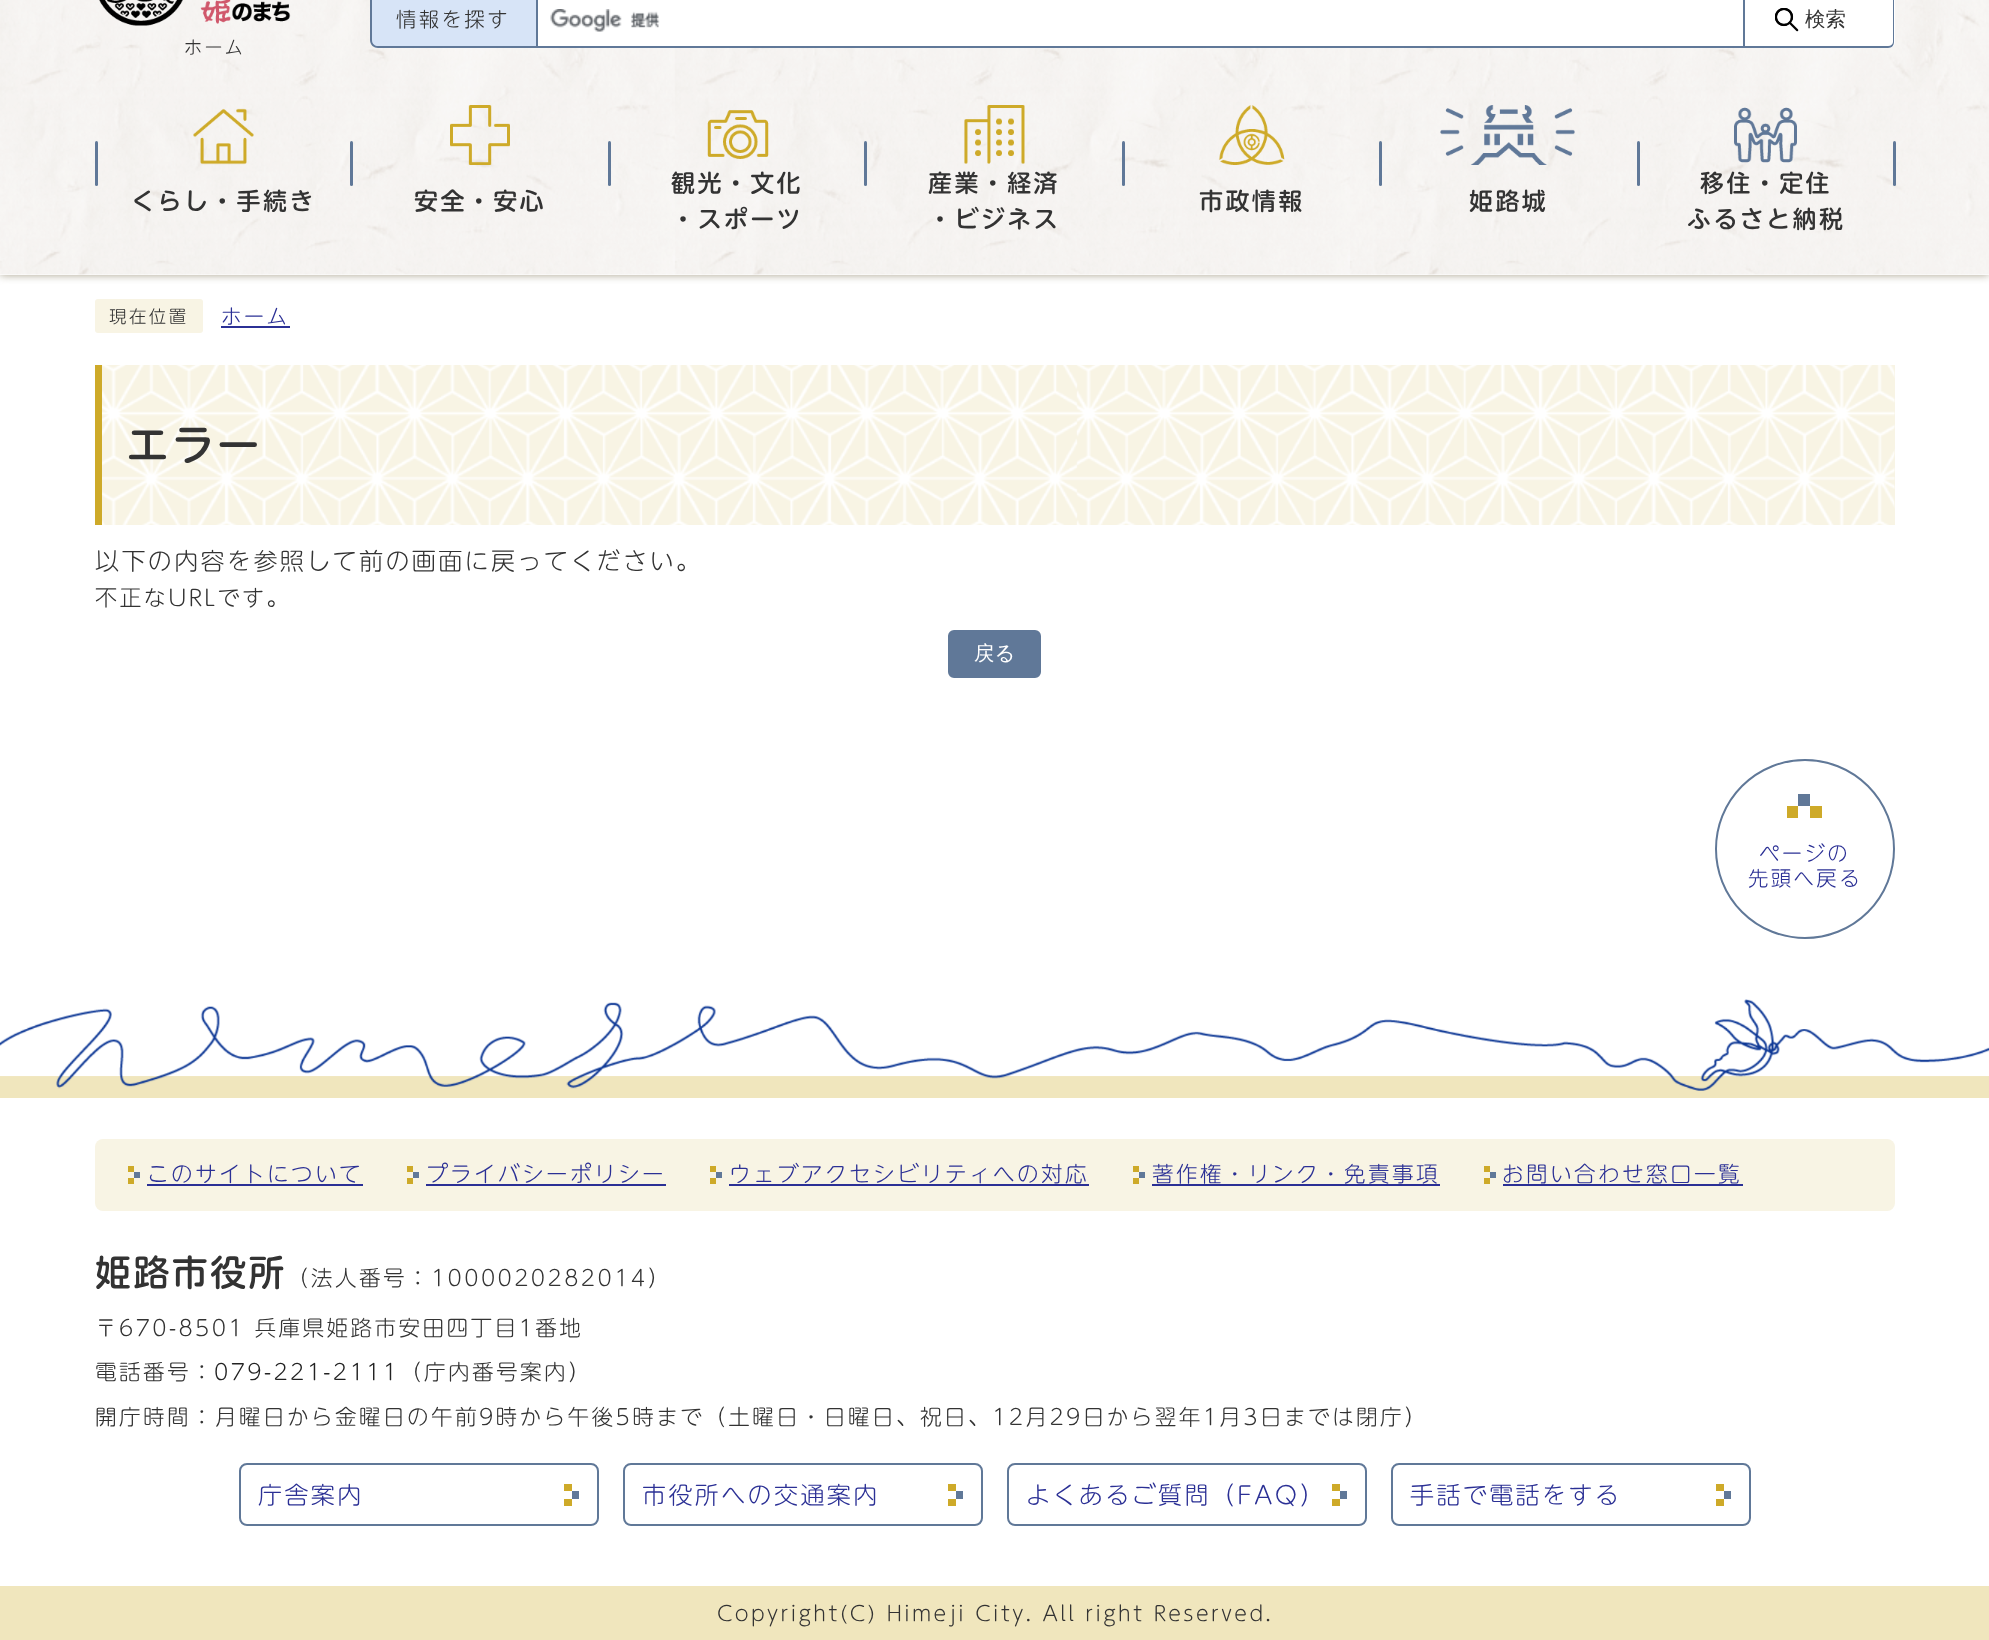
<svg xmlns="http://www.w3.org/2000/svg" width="1989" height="1640">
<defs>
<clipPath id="clip1"><path d="M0 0h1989v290h-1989zm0-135h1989v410h-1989z" clip-rule="evenodd"/></clipPath>
</defs>
<rect width="100%" height="100%" fill="#fff"/>
<g clip-path="url(#clip1)">
<rect y="-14" width="1989" height="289" fill="#948b72cc" filter="blur(4.5px)"/>
</g>
<image x="0" y="0" width="1989" height="275" href="media/1.png"/>
<path d="M379-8h157v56h-157c-4.5 0-8-3.5-8-8v-40c0-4.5 3.5-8 8-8z" fill="#d7e4f7"/>
<path d="M378-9h158v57h-158c-4 0-8-3-8-8v-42c0-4 4-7 8-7zm0 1h158v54h-158c-3 0-6-2-6-6v-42c0-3 3-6 6-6z" fill="#607898" fill-rule="evenodd"/>
<text x="396" y="27" style="font-family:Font;font-size:20.4px;font-weight:300;letter-spacing:2.4px;fill:#333">情報を探す</text>
<rect x="538" width="1205" height="46" fill="#fff"/>
<image x="550" y="9" width="110" height="23" href="media/2.png"/>
<rect x="537" y="-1" width="1207" height="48" fill="none" stroke="#607898" stroke-width="2"/>
<path d="M1745-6h144c3.5 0 6 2.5 6 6v42c0 3.5-2.5 6-6 6h-144z" fill="#fff"/>
<image x="1775" y="8" width="24" height="24" href="media/3.png"/>
<path d="M1744-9h144c4 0 6 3 6 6v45c0 3-2 6-6 6h-144zm0 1h144c3 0 5 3 5 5v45c0 2-2 4-5 4h-144z" fill="#607898" fill-rule="evenodd"/>
<text x="1805" y="26" style="font-family:WenQuanYi Zen Hei;font-size:20.4px;font-weight:500;fill:#333">検索</text>
<image x="99" y="0" width="192" height="26" href="media/4.png"/>
<text x="184" y="54" style="font-family:Font;font-size:18px;font-weight:300;letter-spacing:2.4px;fill:#333">ホーム</text>
<rect x="95" y="141" width="3" height="45" rx="1.5" fill="#607898"/>
<image x="193" y="108" width="61" height="57" href="media/5.png"/>
<rect x="350" y="141" width="3" height="45" rx="1.5" fill="#607898"/>
<text x="131" y="210" style="font-family:Font;font-size:24px;font-weight:500;letter-spacing:2.4px;fill:#333">くらし・手続き</text>
<image x="450" y="105" width="60" height="60" href="media/6.png"/>
<rect x="608" y="141" width="3" height="45" rx="1.5" fill="#607898"/>
<text x="414" y="210" style="font-family:Font;font-size:24px;font-weight:500;letter-spacing:2.4px;fill:#333">安全・安心</text>
<image x="707" y="110" width="62" height="49" href="media/7.png"/>
<rect x="864" y="141" width="3" height="45" rx="1.5" fill="#607898"/>
<text x="671" y="192" style="font-family:Font;font-size:24px;font-weight:500;letter-spacing:2.4px;fill:#333">観光・文化</text>
<text x="671" y="228" style="font-family:Font;font-size:24px;font-weight:500;letter-spacing:2.4px;fill:#333">・スポーツ</text>
<image x="964" y="105" width="61" height="59" href="media/8.png"/>
<rect x="1122" y="141" width="3" height="45" rx="1.5" fill="#607898"/>
<text x="928" y="192" style="font-family:Font;font-size:24px;font-weight:500;letter-spacing:2.4px;fill:#333">産業・経済</text>
<text x="928" y="228" style="font-family:Font;font-size:24px;font-weight:500;letter-spacing:2.4px;fill:#333">・ビジネス</text>
<image x="1218" y="105" width="67" height="60" href="media/9.png"/>
<rect x="1379" y="141" width="3" height="45" rx="1.5" fill="#607898"/>
<text x="1199" y="210" style="font-family:Font;font-size:24px;font-weight:500;letter-spacing:2.4px;fill:#333">市政情報</text>
<image x="1440" y="105" width="135" height="60" href="media/10.png"/>
<rect x="1637" y="141" width="3" height="45" rx="1.5" fill="#607898"/>
<text x="1469" y="210" style="font-family:Font;font-size:24px;font-weight:500;letter-spacing:2.4px;fill:#333">姫路城</text>
<image x="1734" y="107" width="63" height="56" href="media/11.png"/>
<rect x="1893" y="141" width="3" height="45" rx="1.5" fill="#607898"/>
<text x="1700" y="192" style="font-family:Font;font-size:24px;font-weight:500;letter-spacing:2.4px;fill:#333">移住・定住</text>
<text x="1687" y="228" style="font-family:Font;font-size:24px;font-weight:500;letter-spacing:2.4px;fill:#333">ふるさと納税</text>
<rect x="95" y="299" width="108" height="34" rx="3" fill="#f8f4e4"/>
<text x="109" y="323" style="font-family:Font;font-size:17.5px;font-weight:300;letter-spacing:2.4px;fill:#333">現在位置</text>
<text x="221" y="324" style="font-family:Font;font-size:20.4px;font-weight:300;letter-spacing:2.4px;fill:#2b3095">ホーム</text>
<rect x="221" y="326" width="69" height="2" fill="#2b3095"/>
<rect x="102" y="365" width="1793" height="160" fill="#f8f4e4"/>
<image x="102" y="365" width="1793" height="160" href="media/12.png"/>
<rect x="95" y="365" width="7" height="160" fill="#ceaa29"/>
<text x="126" y="461" style="font-family:Font;font-size:43px;font-weight:500;letter-spacing:2.4px;fill:#333">エラー</text>
<text x="95" y="570" style="font-family:Font;font-size:24px;font-weight:300;letter-spacing:2.4px;fill:#333">以下の内容を参照して前の画面に戻ってください。</text>
<text x="95" y="606" style="font-family:Font;font-size:22px;font-weight:300;letter-spacing:2.4px;fill:#333">不正なURLです。</text>
<rect x="949" y="631" width="91" height="46" rx="5" fill="#607898" stroke="#607898" stroke-width="2"/>
<text x="974" y="660" style="font-family:WenQuanYi Zen Hei;font-size:20.4px;font-weight:500;fill:#fff">戻る</text>
<circle cx="1805" cy="849" r="89" fill="none" stroke="#607898" stroke-width="2"/>
<rect x="1787" y="806" width="11" height="12" fill="#ceaa29"/>
<rect x="1798" y="794" width="12" height="12" fill="#607898"/>
<rect x="1810" y="806" width="12" height="12" fill="#ceaa29"/>
<text x="1759" y="861" style="font-family:Font;font-size:20.4px;font-weight:300;letter-spacing:2.4px;fill:#2b3095">ページの</text>
<text x="1748" y="886" style="font-family:Font;font-size:20.4px;font-weight:300;letter-spacing:2.4px;fill:#2b3095">先頭へ戻る</text>
<image x="0" y="999" width="1989" height="99" href="media/13.png"/>
<rect x="95" y="1139" width="1800" height="72" rx="8" fill="#f8f4e4"/>
<rect x="128" y="1166" width="6" height="6" fill="#ceaa29"/>
<rect x="134" y="1172" width="6" height="6" fill="#607898"/>
<rect x="128" y="1178" width="6" height="6" fill="#ceaa29"/>
<text x="147" y="1182" style="font-family:Font;font-size:21.6px;font-weight:300;letter-spacing:2.4px;fill:#2b3095">このサイトについて</text>
<rect x="147" y="1184" width="216" height="2" fill="#2b3095"/>
<rect x="407" y="1166" width="6" height="6" fill="#ceaa29"/>
<rect x="413" y="1172" width="6" height="6" fill="#607898"/>
<rect x="407" y="1178" width="6" height="6" fill="#ceaa29"/>
<text x="426" y="1182" style="font-family:Font;font-size:21.6px;font-weight:300;letter-spacing:2.4px;fill:#2b3095">プライバシーポリシー</text>
<rect x="426" y="1184" width="240" height="2" fill="#2b3095"/>
<rect x="710" y="1166" width="6" height="6" fill="#ceaa29"/>
<rect x="716" y="1172" width="6" height="6" fill="#607898"/>
<rect x="710" y="1178" width="6" height="6" fill="#ceaa29"/>
<text x="729" y="1182" style="font-family:Font;font-size:21.6px;font-weight:300;letter-spacing:2.4px;fill:#2b3095">ウェブアクセシビリティへの対応</text>
<rect x="729" y="1184" width="360" height="2" fill="#2b3095"/>
<rect x="1133" y="1166" width="6" height="6" fill="#ceaa29"/>
<rect x="1139" y="1172" width="6" height="6" fill="#607898"/>
<rect x="1133" y="1178" width="6" height="6" fill="#ceaa29"/>
<text x="1152" y="1182" style="font-family:Font;font-size:21.6px;font-weight:300;letter-spacing:2.4px;fill:#2b3095">著作権・リンク・免責事項</text>
<rect x="1152" y="1184" width="288" height="2" fill="#2b3095"/>
<rect x="1484" y="1166" width="6" height="6" fill="#ceaa29"/>
<rect x="1490" y="1172" width="6" height="6" fill="#607898"/>
<rect x="1484" y="1178" width="6" height="6" fill="#ceaa29"/>
<text x="1502" y="1182" style="font-family:Font;font-size:21.6px;font-weight:300;letter-spacing:2.4px;fill:#2b3095">お問い合わせ窓口一覧</text>
<rect x="1503" y="1184" width="240" height="2" fill="#2b3095"/>
<text x="95" y="1286" style="font-family:Font;font-size:36px;font-weight:500;letter-spacing:2.4px;fill:#333">姫路市役所</text>
<text x="287" y="1286" style="font-family:Font;font-size:21.6px;font-weight:300;letter-spacing:2.4px;fill:#333">（法人番号：1000020282014）</text>
<text x="95" y="1336" style="font-family:Font;font-size:21.6px;font-weight:300;letter-spacing:2.4px;fill:#333">〒670-8501 兵庫県姫路市安田四丁目1番地</text>
<text x="95" y="1380" style="font-family:Font;font-size:21.6px;font-weight:300;letter-spacing:2.4px;fill:#333">電話番号：</text>
<text x="214" y="1380" style="font-family:Font;font-size:21.6px;font-weight:300;letter-spacing:2.4px;fill:#222">079-221-2111</text>
<text x="400" y="1380" style="font-family:Font;font-size:21.6px;font-weight:300;letter-spacing:2.4px;fill:#333">（庁内番号案内）</text>
<text x="95" y="1425" style="font-family:Font;font-size:21.6px;font-weight:300;letter-spacing:2.4px;fill:#333">開庁時間：月曜日から金曜日の午前9時から午後5時まで（土曜日・日曜日、祝日、12月29日から翌年1月3日までは閉庁）</text>
<rect x="240" y="1464" width="358" height="61" rx="7" fill="none" stroke="#607898" stroke-width="2"/>
<text x="258" y="1504" style="font-family:Font;font-size:24px;font-weight:300;letter-spacing:2.4px;fill:#2b3095">庁舎案内</text>
<rect x="564" y="1484" width="8" height="7" fill="#ceaa29"/>
<rect x="572" y="1491" width="7" height="8" fill="#607898"/>
<rect x="564" y="1499" width="8" height="7" fill="#ceaa29"/>
<rect x="624" y="1464" width="358" height="61" rx="7" fill="none" stroke="#607898" stroke-width="2"/>
<text x="642" y="1504" style="font-family:Font;font-size:24px;font-weight:300;letter-spacing:2.4px;fill:#2b3095">市役所への交通案内</text>
<rect x="948" y="1484" width="8" height="7" fill="#ceaa29"/>
<rect x="956" y="1491" width="7" height="8" fill="#607898"/>
<rect x="948" y="1499" width="8" height="7" fill="#ceaa29"/>
<rect x="1008" y="1464" width="358" height="61" rx="7" fill="none" stroke="#607898" stroke-width="2"/>
<text x="1026" y="1504" style="font-family:Font;font-size:24px;font-weight:300;letter-spacing:2.4px;fill:#2b3095">よくあるご質問（FAQ）</text>
<rect x="1332" y="1484" width="8" height="7" fill="#ceaa29"/>
<rect x="1340" y="1491" width="7" height="8" fill="#607898"/>
<rect x="1332" y="1499" width="8" height="7" fill="#ceaa29"/>
<rect x="1392" y="1464" width="358" height="61" rx="7" fill="none" stroke="#607898" stroke-width="2"/>
<text x="1410" y="1504" style="font-family:Font;font-size:24px;font-weight:300;letter-spacing:2.4px;fill:#2b3095">手話で電話をする</text>
<rect x="1716" y="1484" width="8" height="7" fill="#ceaa29"/>
<rect x="1724" y="1491" width="7" height="8" fill="#607898"/>
<rect x="1716" y="1499" width="8" height="7" fill="#ceaa29"/>
<rect y="1586" width="1989" height="54" fill="#f0e6bd"/>
<text x="717" y="1621" style="font-family:Font;font-size:20.4px;font-weight:300;letter-spacing:2.4px;fill:#333">Copyright(C) Himeji City. All right Reserved.</text>
</svg>
